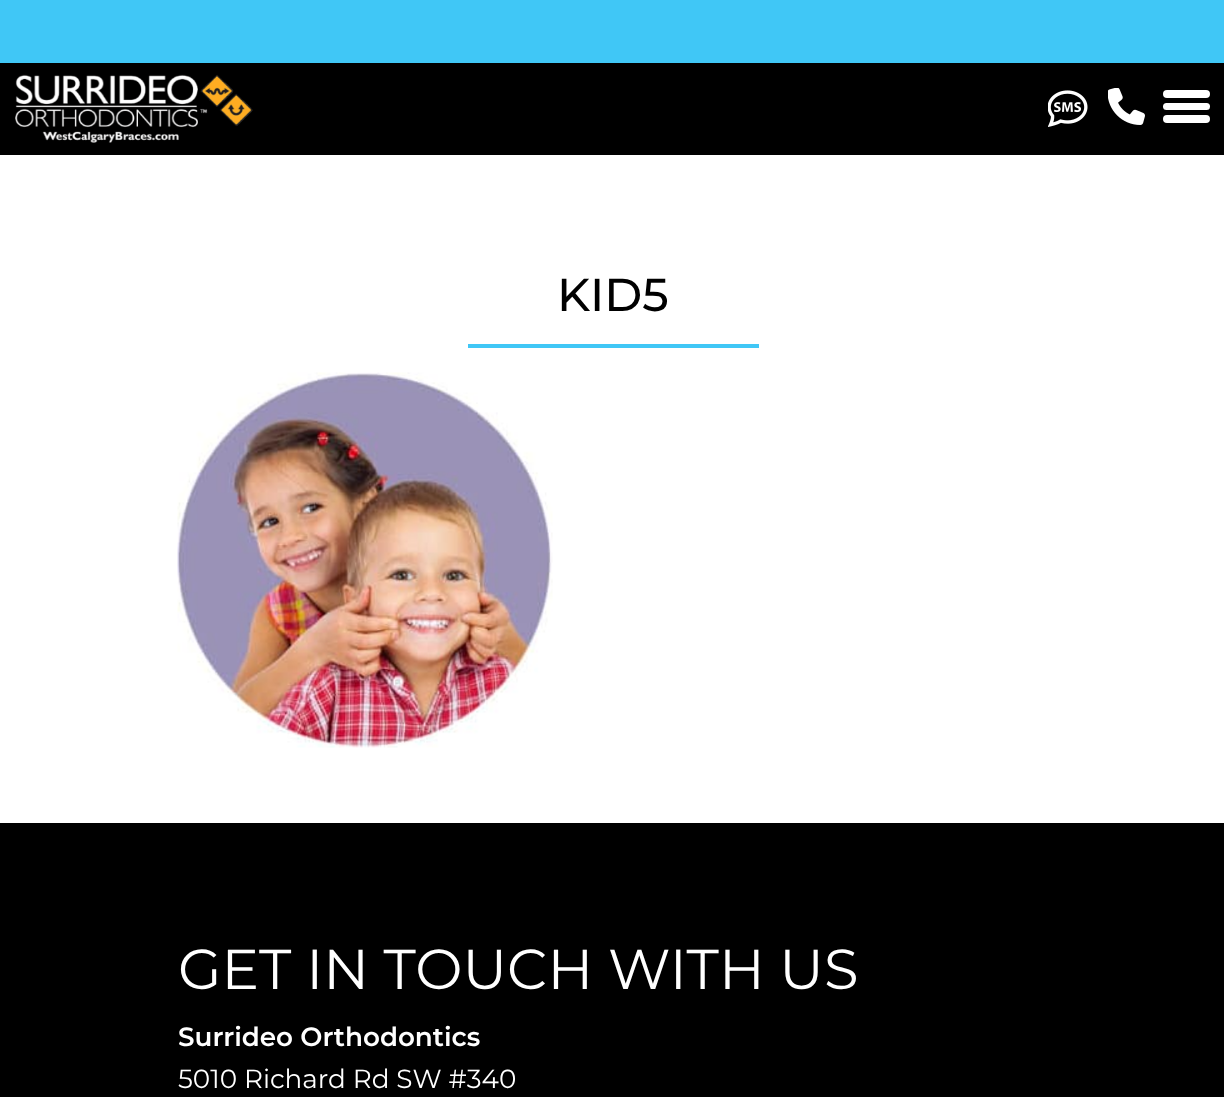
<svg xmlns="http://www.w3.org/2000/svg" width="1224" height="1097">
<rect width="100%" height="100%" fill="#fff"/>
<rect width="1224" height="63" fill="#40c7f6"/>
<rect y="63" width="1224" height="92" fill="#000"/>
<image x="15" y="74" width="238" height="69" href="media/1.png"/>
<image x="1048" y="90" width="40" height="37" href="media/2.png"/>
<image x="1108" y="88" width="37" height="37" href="media/3.png"/>
<rect x="1163" y="90" width="47" height="8" rx="4" fill="#fff"/>
<rect x="1163" y="103" width="47" height="7" rx="3.5" fill="#fff"/>
<rect x="1163" y="115" width="47" height="8" rx="4" fill="#fff"/>
<text x="557" y="311" style="font-family:Montserrat;font-size:46px;font-weight:500;fill:#000">KID5</text>
<rect x="468" y="344" width="291" height="4" fill="#40c7f6"/>
<image x="177" y="372" width="376" height="376" href="media/4.png"/>
<rect y="823" width="1224" height="274" fill="#000"/>
<text x="178" y="989" style="font-family:Montserrat;font-size:56.25px;fill:#fff">GET IN TOUCH WITH US</text>
<text x="178" y="1046" style="font-family:Montserrat;font-size:26.25px;font-weight:600;fill:#fff">Surrideo Orthodontics</text>
<text x="178" y="1088" style="font-family:Montserrat;font-size:26.25px;fill:#fff">5010 Richard Rd SW #340</text>
</svg>
